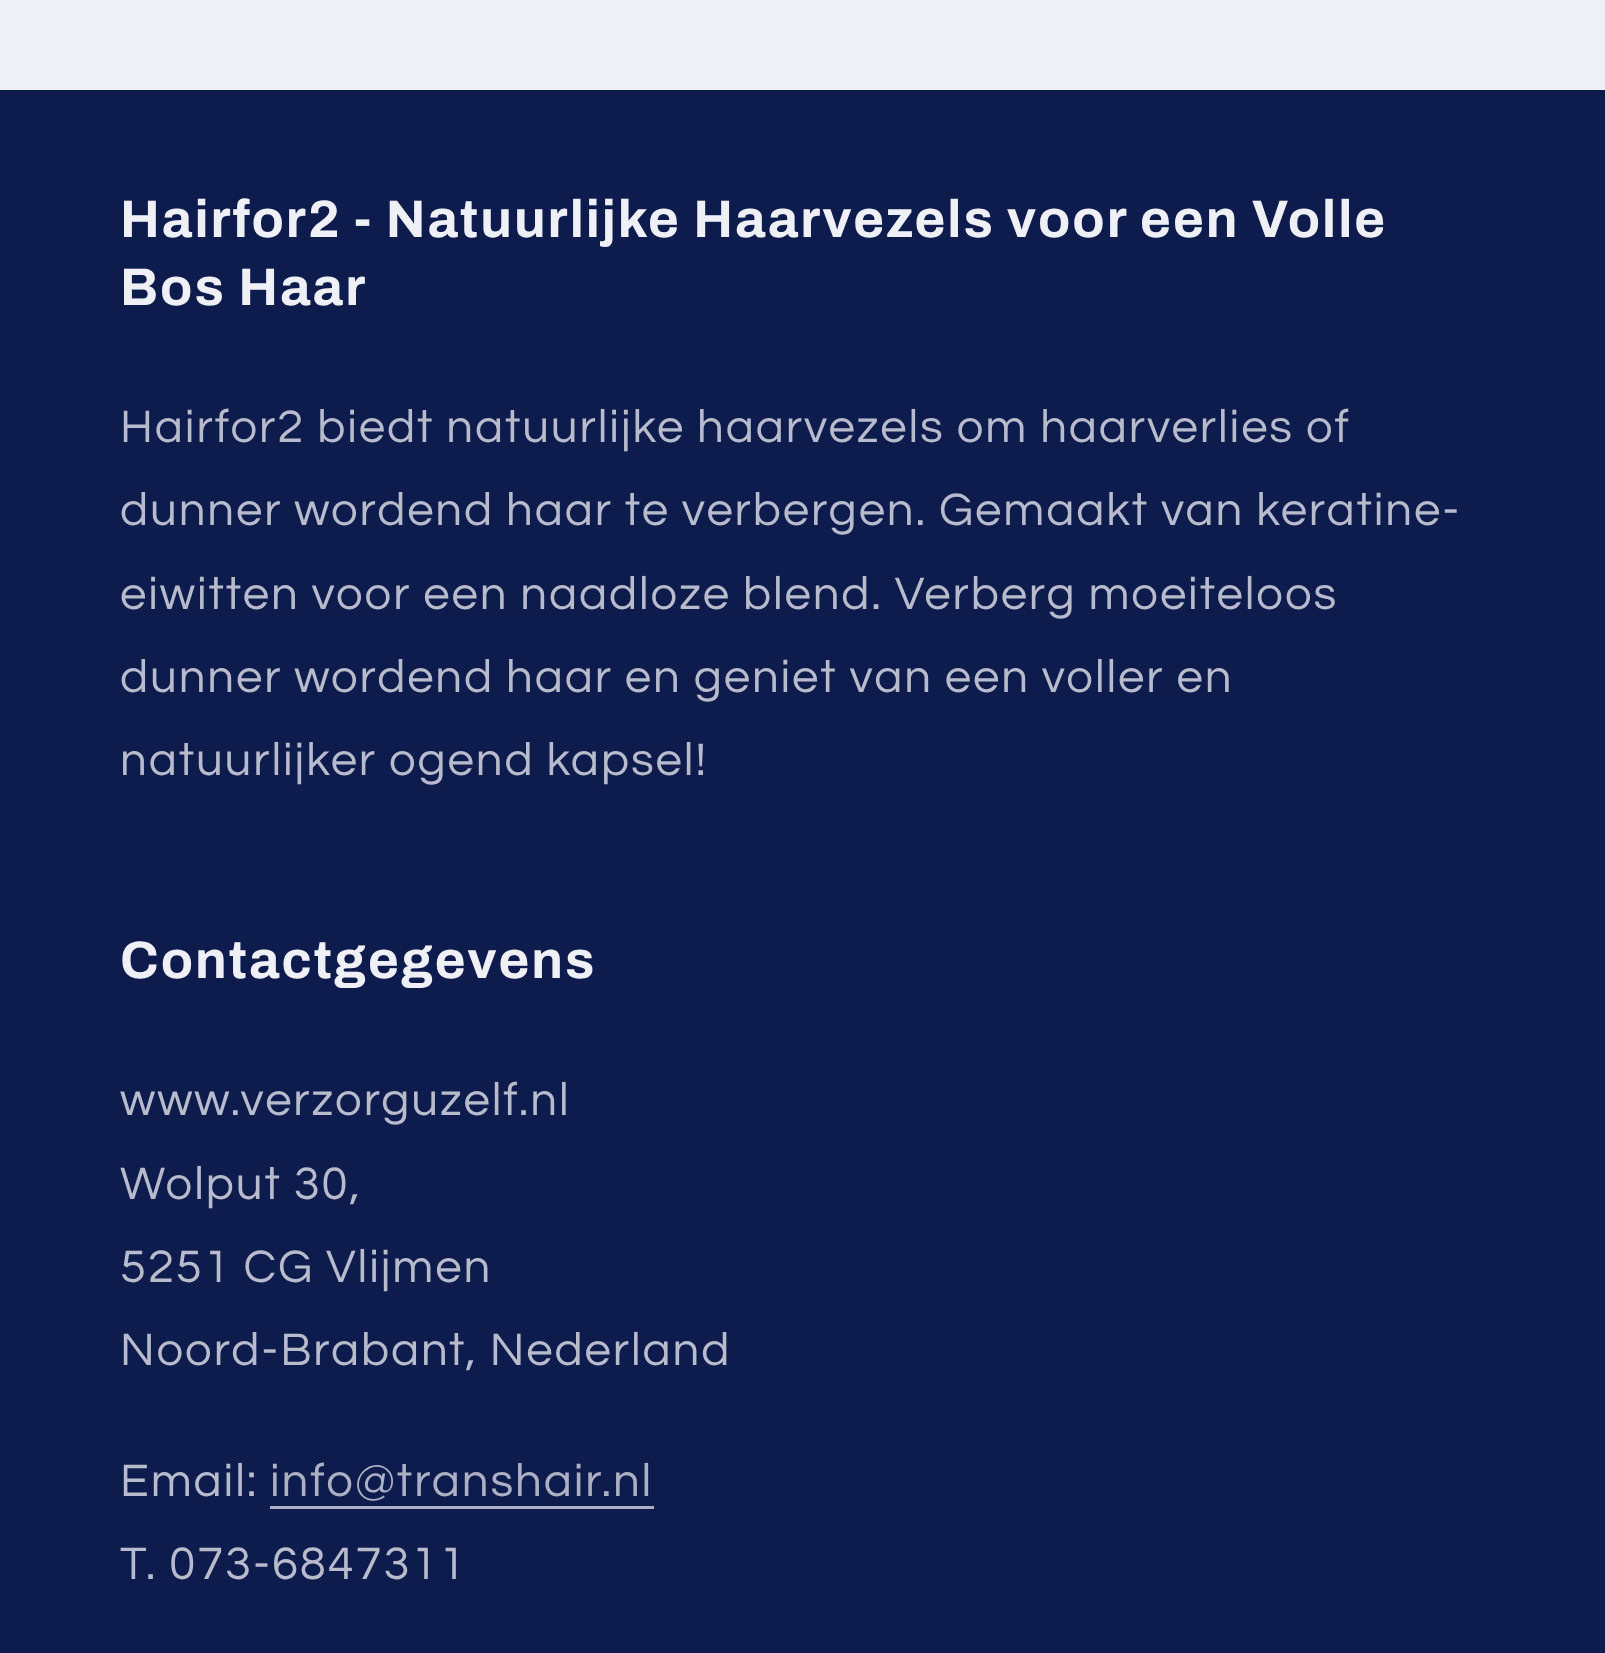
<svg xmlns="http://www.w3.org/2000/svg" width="1605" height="1653">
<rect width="100%" height="100%" fill="#eff0f5"/>
<rect y="90" width="1605" height="1563" fill="#0e1b4d"/>
<text x="120" y="237" style="font-family:Archivo;font-size:52.8px;font-weight:bold;letter-spacing:2px;fill:#eff0f5">Hairfor2 - Natuurlijke Haarvezels voor een Volle</text>
<text x="120" y="305" style="font-family:Archivo;font-size:52.8px;font-weight:bold;letter-spacing:2px;fill:#eff0f5">Bos Haar</text>
<text x="120" y="442" style="font-family:Questrial;font-size:47.25px;letter-spacing:1.9px;fill:#b7bbcb">Hairfor2 biedt natuurlijke haarvezels om haarverlies of</text>
<text x="120" y="525" style="font-family:Questrial;font-size:47.25px;letter-spacing:1.9px;fill:#b7bbcb">dunner wordend haar te verbergen. Gemaakt van keratine-</text>
<text x="120" y="609" style="font-family:Questrial;font-size:47.25px;letter-spacing:1.9px;fill:#b7bbcb">eiwitten voor een naadloze blend. Verberg moeiteloos</text>
<text x="120" y="692" style="font-family:Questrial;font-size:47.25px;letter-spacing:1.9px;fill:#b7bbcb">dunner wordend haar en geniet van een voller en</text>
<text x="120" y="775" style="font-family:Questrial;font-size:47.25px;letter-spacing:1.9px;fill:#b7bbcb">natuurlijker ogend kapsel!</text>
<text x="120" y="978" style="font-family:Archivo;font-size:52.8px;font-weight:bold;letter-spacing:2px;fill:#eff0f5">Contactgegevens</text>
<text x="120" y="1115" style="font-family:Questrial;font-size:47.25px;letter-spacing:1.9px;fill:#b7bbcb">www.verzorguzelf.nl</text>
<text x="120" y="1199" style="font-family:Questrial;font-size:47.25px;letter-spacing:1.9px;fill:#b7bbcb">Wolput 30,</text>
<text x="120" y="1282" style="font-family:Questrial;font-size:47.25px;letter-spacing:1.9px;fill:#b7bbcb">5251 CG Vlijmen</text>
<text x="120" y="1365" style="font-family:Questrial;font-size:47.25px;letter-spacing:1.9px;fill:#b7bbcb">Noord-Brabant, Nederland</text>
<text x="120" y="1496" style="font-family:Questrial;font-size:47.25px;letter-spacing:1.9px;fill:#b7bbcb">Email:</text>
<text x="270" y="1496" style="font-family:Questrial;font-size:47.25px;letter-spacing:1.9px;fill:#acb0c3">info@transhair.nl</text>
<rect x="270" y="1506" width="384" height="3" fill="#acb0c3"/>
<text x="120" y="1579" style="font-family:Questrial;font-size:47.25px;letter-spacing:1.9px;fill:#b7bbcb">T. 073-6847311</text>
</svg>
